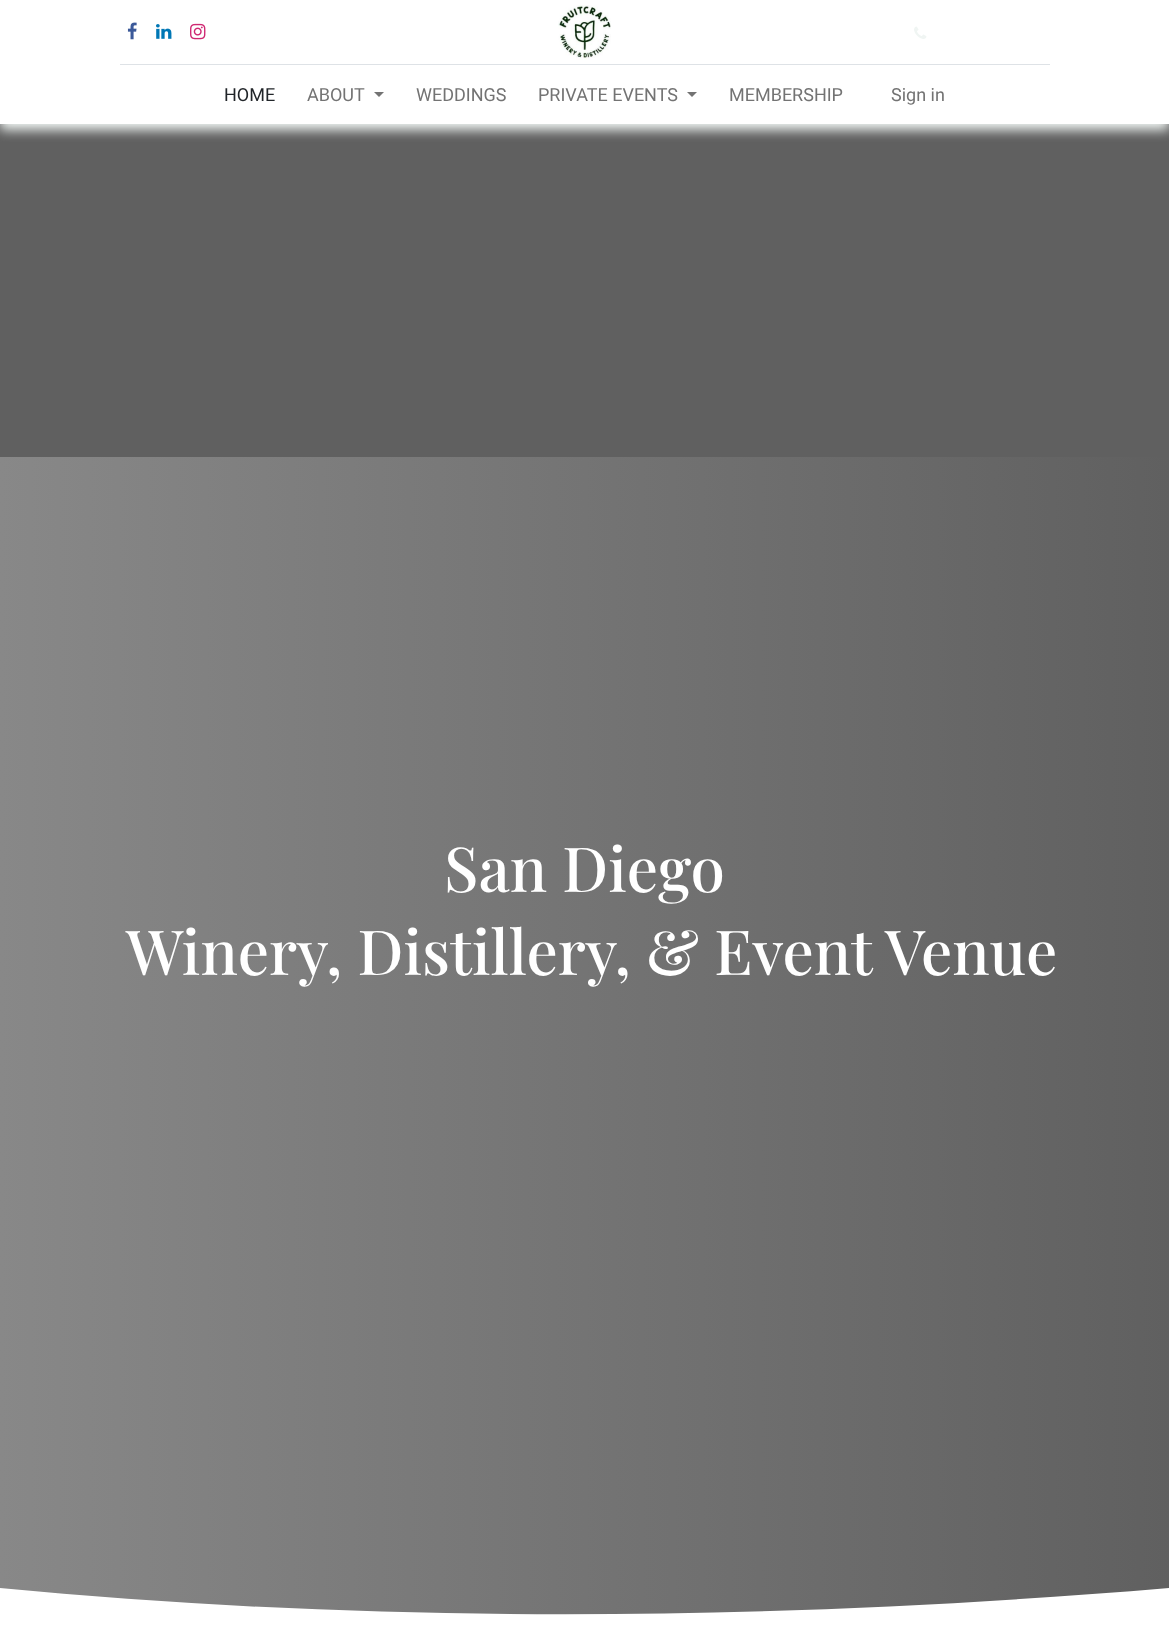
<svg xmlns="http://www.w3.org/2000/svg" width="1169" height="1626">
<defs>
<clipPath id="clip1"><rect x="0" y="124" width="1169" height="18"/></clipPath>
<linearGradient id="g1" gradientUnits="userSpaceOnUse" x1="0" y1="1626" x2="1169" y2="1626"><stop offset="0" stop-color="#888"/><stop offset="1" stop-color="#606060"/></linearGradient>
</defs>
<rect width="100%" height="100%" fill="#fff"/>
<rect y="124" width="1169" height="333" fill="#606060"/>
<g clip-path="url(#clip1)">
<rect y="6" width="1169" height="124" fill="#f0f5f3" filter="blur(6px)"/>
</g>
<image x="127" y="22" width="10" height="18" href="media/1.png"/>
<image x="156" y="24" width="16" height="15" href="media/2.png"/>
<image x="190" y="23" width="16" height="17" href="media/3.png"/>
<image x="558" y="5" width="53" height="55" href="media/4.png"/>
<image x="914" y="26" width="13" height="13" href="media/5.png"/>
<rect x="120" y="64" width="930" height="1" fill="#dee2e6"/>
<text x="224" y="101" style="font-family:Roboto;font-size:18px;fill:#212529">HOME</text>
<text x="307" y="101" style="font-family:Roboto;font-size:18px;fill:#737373">ABOUT</text>
<path d="M374 92h10l-5 5z" fill="#737373"/>
<text x="416" y="101" style="font-family:Roboto;font-size:18px;fill:#737373">WEDDINGS</text>
<text x="538" y="101" style="font-family:Roboto;font-size:18px;fill:#737373">PRIVATE EVENTS</text>
<path d="M687 92h10l-5 5z" fill="#737373"/>
<text x="729" y="101" style="font-family:Roboto;font-size:18px;fill:#737373">MEMBERSHIP</text>
<text x="891" y="101" style="font-family:Roboto;font-size:18px;fill:#737373">Sign in</text>
<rect y="457" width="1169" height="1158" fill="url(#g1)"/>
<path d="M0 1588v38h1169v-38c-404 34-795 36-1169 0z" fill="#fff"/>
<text x="444" y="892" style="font-family:Playfair Display;font-size:62px;font-weight:500;fill:#fff">San Diego</text>
<text x="126" y="975" style="font-family:Playfair Display;font-size:62px;font-weight:500;fill:#fff">Winery, Distillery, &amp; Event Venue</text>
</svg>
